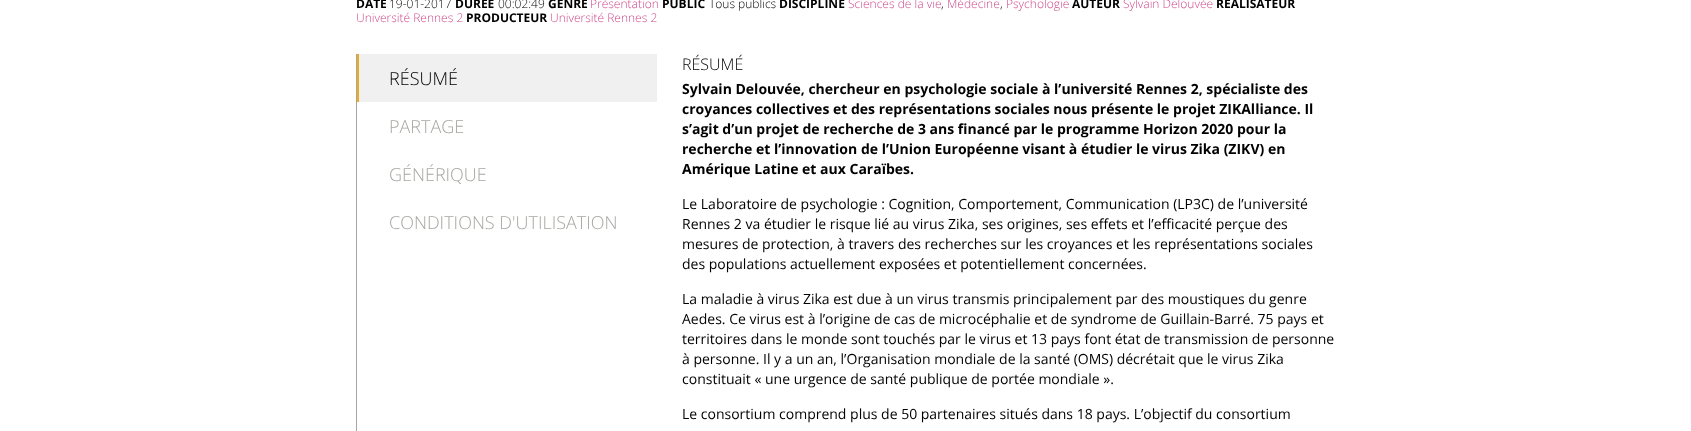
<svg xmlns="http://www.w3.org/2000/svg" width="1691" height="431">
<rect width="100%" height="100%" fill="#fff"/>
<text x="356" y="8" style="font-family:Open Sans;font-size:12px;font-weight:bold;fill:#000">DATE</text>
<text x="389" y="8" style="font-family:Open Sans;font-size:12px;font-weight:300;fill:#000">19-01-2017</text>
<text x="455" y="8" style="font-family:Open Sans;font-size:12px;font-weight:bold;fill:#000">DURÉE</text>
<text x="498" y="8" style="font-family:Open Sans;font-size:12px;font-weight:300;fill:#000">00:02:49</text>
<text x="548" y="8" style="font-family:Open Sans;font-size:12px;font-weight:bold;fill:#000">GENRE</text>
<text x="590" y="8" style="font-family:Open Sans;font-size:12px;font-weight:300;fill:#ce4a8d">Présentation</text>
<text x="662" y="8" style="font-family:Open Sans;font-size:12px;font-weight:bold;fill:#000">PUBLIC</text>
<text x="709" y="8" style="font-family:Open Sans;font-size:12px;font-weight:300;fill:#000">Tous publics</text>
<text x="779" y="8" style="font-family:Open Sans;font-size:12px;font-weight:bold;fill:#000">DISCIPLINE</text>
<text x="848" y="8" style="font-family:Open Sans;font-size:12px;font-weight:300;fill:#ce4a8d">Sciences de la vie</text>
<text x="941" y="8" style="font-family:Open Sans;font-size:12px;font-weight:300;fill:#000">,</text>
<text x="947" y="8" style="font-family:Open Sans;font-size:12px;font-weight:300;fill:#ce4a8d">Médecine</text>
<text x="1000" y="8" style="font-family:Open Sans;font-size:12px;font-weight:300;fill:#000">,</text>
<text x="1006" y="8" style="font-family:Open Sans;font-size:12px;font-weight:300;fill:#ce4a8d">Psychologie</text>
<text x="1072" y="8" style="font-family:Open Sans;font-size:12px;font-weight:bold;fill:#000">AUTEUR</text>
<text x="1123" y="8" style="font-family:Open Sans;font-size:12px;font-weight:300;fill:#ce4a8d">Sylvain Delouvée</text>
<text x="1216" y="8" style="font-family:Open Sans;font-size:12px;font-weight:bold;fill:#000">RÉALISATEUR</text>
<text x="356" y="22" style="font-family:Open Sans;font-size:12px;font-weight:300;fill:#ce4a8d">Université Rennes 2</text>
<text x="466" y="22" style="font-family:Open Sans;font-size:12px;font-weight:bold;fill:#000">PRODUCTEUR</text>
<text x="550" y="22" style="font-family:Open Sans;font-size:12px;font-weight:300;fill:#ce4a8d">Université Rennes 2</text>
<rect x="356" y="54" width="1" height="377" fill="#a6a6a2"/>
<rect x="359" y="54" width="298" height="48" fill="#f0f0f0"/>
<rect x="357" y="54" width="2" height="48" fill="#f1aa1c"/>
<text x="389" y="85" style="font-family:Open Sans;font-size:18px;font-weight:300;fill:#000">RÉSUMÉ</text>
<text x="389" y="133" style="font-family:Open Sans;font-size:18px;font-weight:300;fill:#a6a6a2">PARTAGE</text>
<text x="389" y="181" style="font-family:Open Sans;font-size:18px;font-weight:300;fill:#a6a6a2">GÉNÉRIQUE</text>
<text x="389" y="229" style="font-family:Open Sans;font-size:18px;font-weight:300;fill:#a6a6a2">CONDITIONS D'UTILISATION</text>
<text x="682" y="70" style="font-family:Open Sans;font-size:16px;font-weight:300;fill:#000">RÉSUMÉ</text>
<text x="682" y="94" style="font-family:Open Sans;font-size:14px;font-weight:bold;fill:#000">Sylvain Delouvée, chercheur en psychologie sociale à l’université Rennes 2, spécialiste des</text>
<text x="682" y="114" style="font-family:Open Sans;font-size:14px;font-weight:bold;fill:#000">croyances collectives et des représentations sociales nous présente le projet ZIKAlliance. Il</text>
<text x="682" y="134" style="font-family:Open Sans;font-size:14px;font-weight:bold;fill:#000">s’agit d’un projet de recherche de 3 ans financé par le programme Horizon 2020 pour la</text>
<text x="682" y="154" style="font-family:Open Sans;font-size:14px;font-weight:bold;fill:#000">recherche et l’innovation de l’Union Européenne visant à étudier le virus Zika (ZIKV) en</text>
<text x="682" y="174" style="font-family:Open Sans;font-size:14px;font-weight:bold;fill:#000">Amérique Latine et aux Caraïbes.</text>
<text x="682" y="209" style="font-family:Open Sans;font-size:14px;fill:#000">Le Laboratoire de psychologie : Cognition, Comportement, Communication (LP3C) de l’université</text>
<text x="682" y="229" style="font-family:Open Sans;font-size:14px;fill:#000">Rennes 2 va étudier le risque lié au virus Zika, ses origines, ses effets et l’efficacité perçue des</text>
<text x="682" y="249" style="font-family:Open Sans;font-size:14px;fill:#000">mesures de protection, à travers des recherches sur les croyances et les représentations sociales</text>
<text x="682" y="269" style="font-family:Open Sans;font-size:14px;fill:#000">des populations actuellement exposées et potentiellement concernées.</text>
<text x="682" y="304" style="font-family:Open Sans;font-size:14px;fill:#000">La maladie à virus Zika est due à un virus transmis principalement par des moustiques du genre</text>
<text x="682" y="324" style="font-family:Open Sans;font-size:14px;fill:#000">Aedes. Ce virus est à l’origine de cas de microcéphalie et de syndrome de Guillain-Barré. 75 pays et</text>
<text x="682" y="344" style="font-family:Open Sans;font-size:14px;fill:#000">territoires dans le monde sont touchés par le virus et 13 pays font état de transmission de personne</text>
<text x="682" y="364" style="font-family:Open Sans;font-size:14px;fill:#000">à personne. Il y a un an, l’Organisation mondiale de la santé (OMS) décrétait que le virus Zika</text>
<text x="682" y="384" style="font-family:Open Sans;font-size:14px;fill:#000">constituait « une urgence de santé publique de portée mondiale ».</text>
<text x="682" y="419" style="font-family:Open Sans;font-size:14px;fill:#000">Le consortium comprend plus de 50 partenaires situés dans 18 pays. L’objectif du consortium</text>
</svg>
